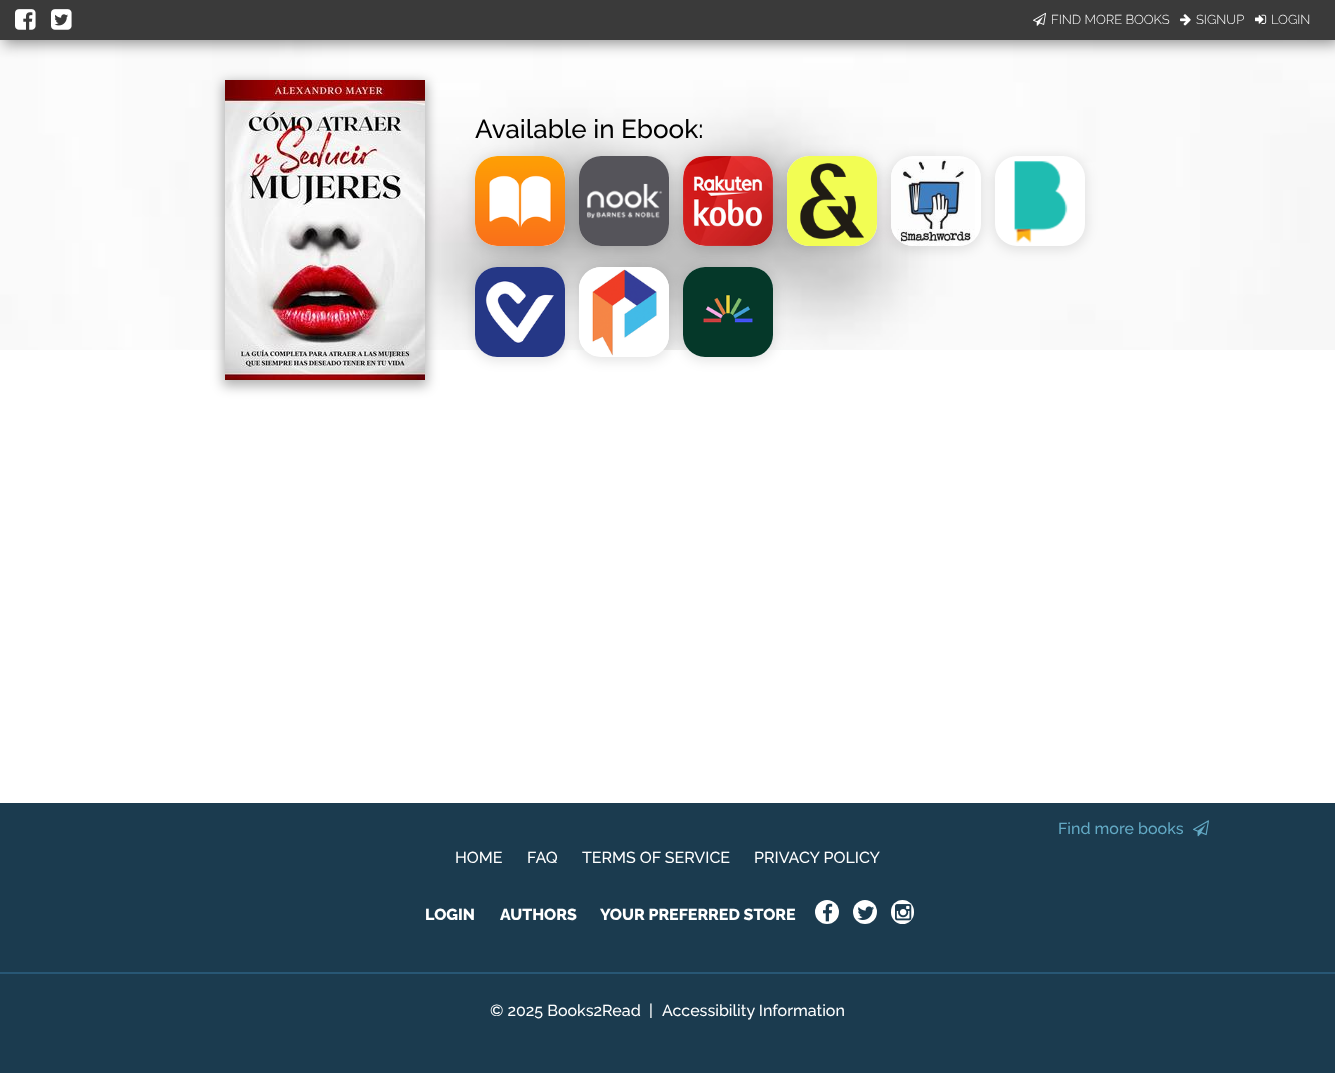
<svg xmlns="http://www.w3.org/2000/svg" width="1335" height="1073">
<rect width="100%" height="100%" fill="#fff"/>
<image x="0" y="40" width="1335" height="310" href="media/1.png"/>
<rect x="4" y="4" width="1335" height="40" fill="#00000066" filter="blur(7px)"/>
<rect width="1335" height="40" fill="#3a3a3a"/>
<image x="15" y="9" width="21" height="21" href="media/2.png"/>
<image x="51" y="9" width="21" height="21" href="media/3.png"/>
<image x="1033" y="12" width="13" height="14" href="media/4.png"/>
<text x="1051" y="24" style="font-family:Raleway;font-size:13px;font-weight:300;fill:#fff">FIND MORE BOOKS</text>
<image x="1180" y="14" width="11" height="12" href="media/5.png"/>
<text x="1196" y="24" style="font-family:Raleway;font-size:13px;font-weight:300;fill:#fff">SIGNUP</text>
<image x="1255" y="14" width="12" height="10" href="media/6.png"/>
<text x="1271" y="24" style="font-family:Raleway;font-size:13px;font-weight:300;fill:#fff">LOGIN</text>
<rect x="223" y="82" width="204" height="304" fill="#0000004d" filter="blur(6px)"/>
<image x="225" y="80" width="200" height="300" href="media/7.png"/>
<rect x="473" y="156" width="94" height="94" rx="24" fill="#0000001a" filter="blur(6px)"/>
<rect x="475" y="156" width="90" height="90" rx="22" fill="#fff"/>
<image x="475" y="156" width="90" height="90" href="media/8.png"/>
<rect x="577" y="156" width="94" height="94" rx="24" fill="#0000001a" filter="blur(6px)"/>
<rect x="579" y="156" width="90" height="90" rx="22" fill="#fff"/>
<image x="579" y="156" width="90" height="90" href="media/9.png"/>
<rect x="681" y="156" width="94" height="94" rx="24" fill="#0000001a" filter="blur(6px)"/>
<text x="475" y="138" style="font-family:Raleway;font-size:26px;font-weight:500;fill:#000">Available in Ebook:</text>
<rect x="683" y="156" width="90" height="90" rx="22" fill="#fff"/>
<image x="683" y="156" width="90" height="90" href="media/10.png"/>
<rect x="785" y="156" width="94" height="94" rx="24" fill="#0000001a" filter="blur(6px)"/>
<rect x="787" y="156" width="90" height="90" rx="22" fill="#fff"/>
<image x="787" y="156" width="90" height="90" href="media/11.png"/>
<rect x="889" y="156" width="94" height="94" rx="24" fill="#0000001a" filter="blur(6px)"/>
<rect x="891" y="156" width="90" height="90" rx="22" fill="#fff"/>
<image x="891" y="159" width="84" height="87" href="media/12.png"/>
<rect x="993" y="156" width="94" height="94" rx="24" fill="#0000001a" filter="blur(6px)"/>
<rect x="995" y="156" width="90" height="90" rx="22" fill="#fff"/>
<image x="1014" y="161" width="54" height="82" href="media/13.png"/>
<rect x="473" y="267" width="94" height="94" rx="24" fill="#0000001a" filter="blur(6px)"/>
<rect x="475" y="267" width="90" height="90" rx="22" fill="#fff"/>
<image x="475" y="267" width="90" height="90" href="media/14.png"/>
<rect x="577" y="267" width="94" height="94" rx="24" fill="#0000001a" filter="blur(6px)"/>
<rect x="579" y="267" width="90" height="90" rx="22" fill="#fff"/>
<image x="579" y="267" width="90" height="89" href="media/15.png"/>
<rect x="681" y="267" width="94" height="94" rx="24" fill="#0000001a" filter="blur(6px)"/>
<rect x="683" y="267" width="90" height="90" rx="22" fill="#fff"/>
<image x="683" y="267" width="90" height="90" href="media/16.png"/>
<rect y="803" width="1335" height="270" fill="#1b3b4f"/>
<text x="1058" y="834" style="font-family:Raleway;font-size:16px;font-weight:500;fill:#63aac5">Find more books</text>
<image x="1193" y="820" width="16" height="17" href="media/17.png"/>
<text x="455" y="863" style="font-family:Raleway;font-size:16px;font-weight:500;fill:#fff">HOME</text>
<text x="527" y="863" style="font-family:Raleway;font-size:16px;font-weight:500;fill:#fff">FAQ</text>
<text x="582" y="863" style="font-family:Raleway;font-size:16px;font-weight:500;fill:#fff">TERMS OF SERVICE</text>
<text x="754" y="863" style="font-family:Raleway;font-size:16px;font-weight:500;fill:#fff">PRIVACY POLICY</text>
<text x="425" y="920" style="font-family:Raleway;font-size:16px;font-weight:800;fill:#fff">LOGIN</text>
<text x="500" y="920" style="font-family:Raleway;font-size:16px;font-weight:800;fill:#fff">AUTHORS</text>
<text x="600" y="920" style="font-family:Raleway;font-size:16px;font-weight:800;fill:#fff">YOUR PREFERRED STORE</text>
<circle cx="827" cy="912" r="12" fill="#fff"/>
<image x="823" y="903" width="10" height="19" href="media/18.png"/>
<circle cx="865" cy="912" r="12" fill="#fff"/>
<image x="857" y="906" width="17" height="14" href="media/19.png"/>
<rect x="891" y="900" width="23" height="24" rx="11.5" fill="#fff"/>
<image x="895" y="904" width="17" height="17" href="media/20.png"/>
<rect y="972" width="1335" height="2" fill="#285775"/>
<text x="490" y="1016" style="font-family:Raleway;font-size:16px;font-weight:500;fill:#fff">© 2025 Books2Read</text>
<text x="649" y="1016" style="font-family:Raleway;font-size:16px;font-weight:500;fill:#fff">|</text>
<text x="662" y="1016" style="font-family:Raleway;font-size:16px;font-weight:500;fill:#fff">Accessibility Information</text>
</svg>
